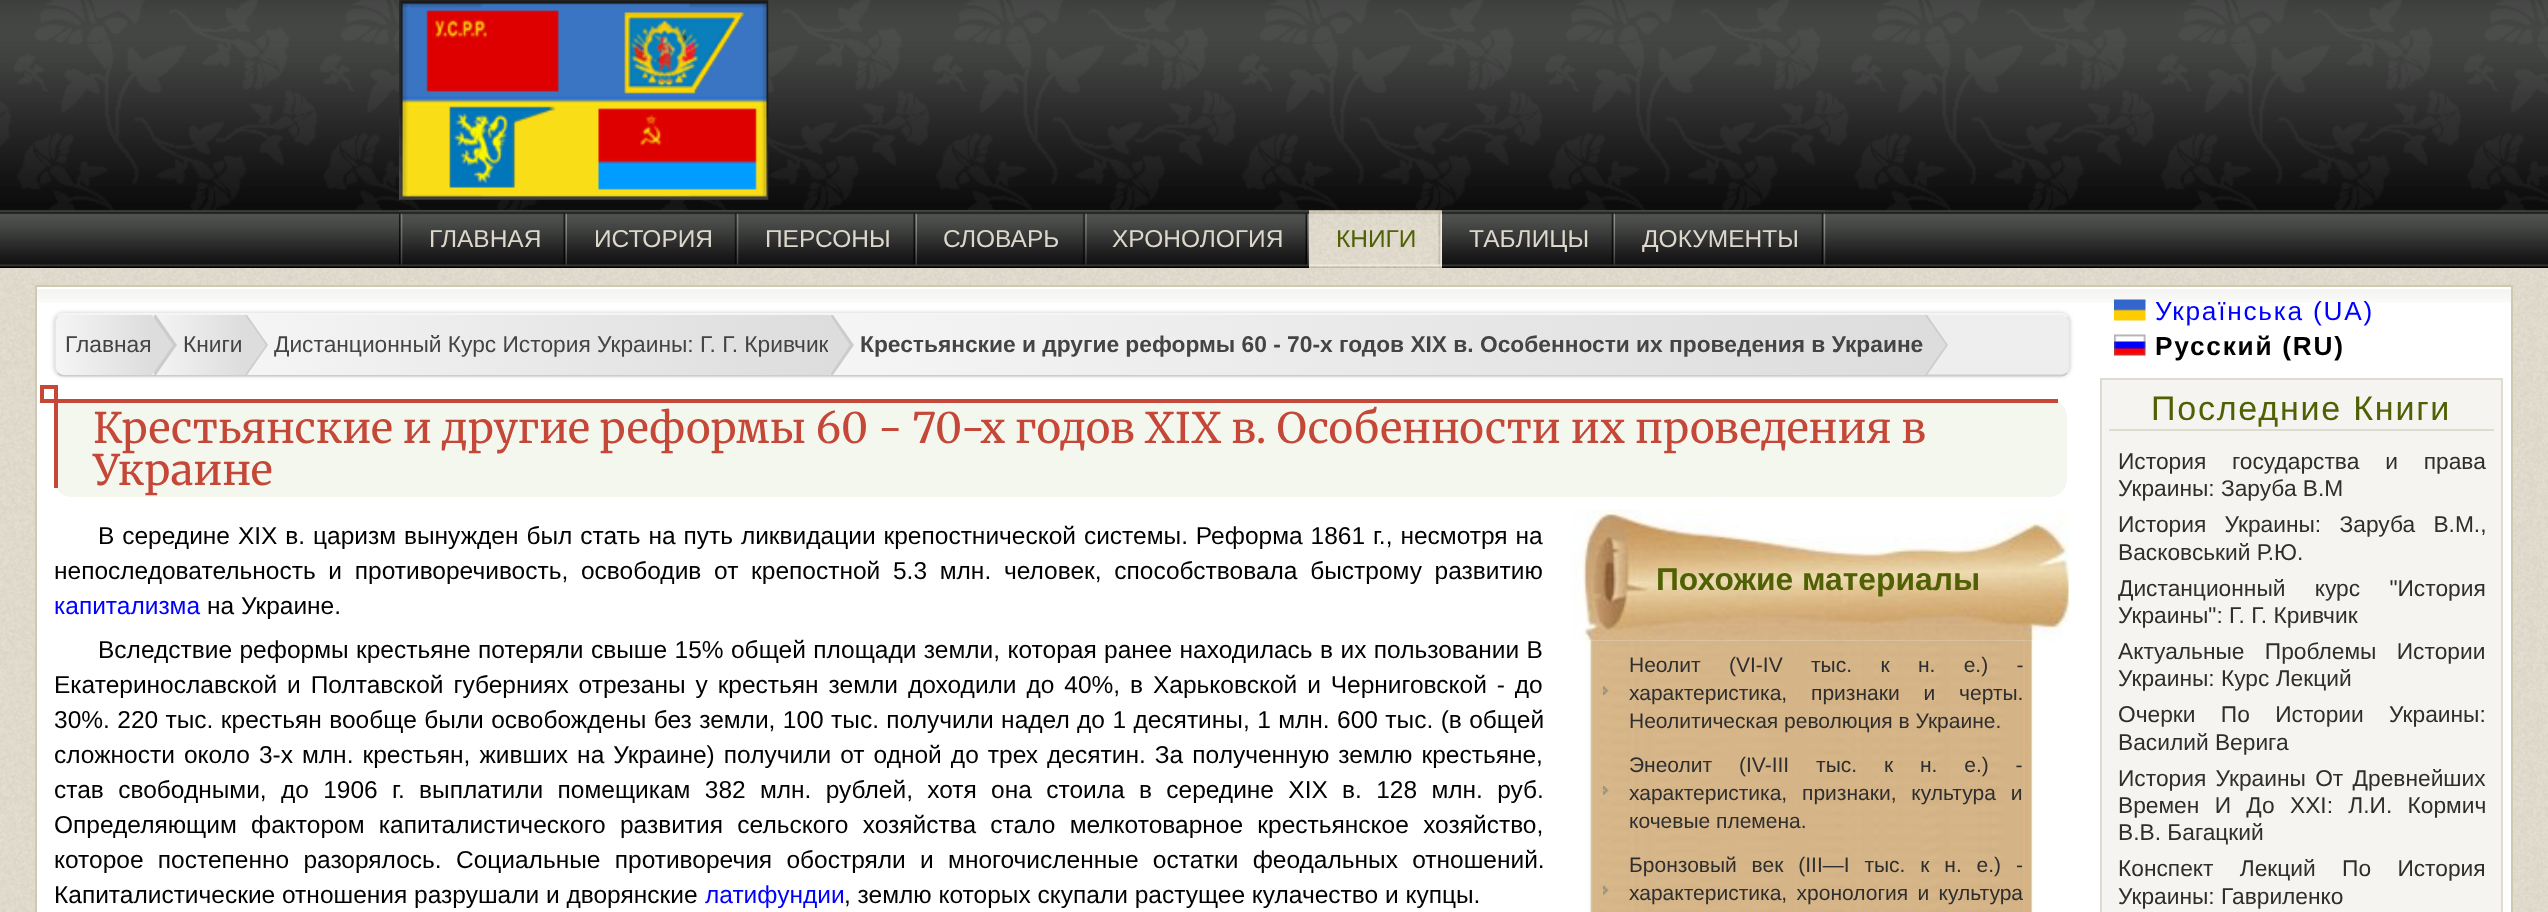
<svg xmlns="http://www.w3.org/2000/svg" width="2548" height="912">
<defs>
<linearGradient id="g1" gradientUnits="userSpaceOnUse" x1="56" y1="345" x2="151" y2="345"><stop offset="0" stop-color="#f5f5f5"/><stop offset="1" stop-color="#ddd"/></linearGradient>
<linearGradient id="g2" gradientUnits="userSpaceOnUse" x1="151" y1="345" x2="243" y2="345"><stop offset="0" stop-color="#f5f5f5"/><stop offset="1" stop-color="#ddd"/></linearGradient>
<linearGradient id="g3" gradientUnits="userSpaceOnUse" x1="243" y1="345" x2="828" y2="345"><stop offset="0" stop-color="#f5f5f5"/><stop offset="1" stop-color="#ddd"/></linearGradient>
<linearGradient id="g4" gradientUnits="userSpaceOnUse" x1="828" y1="345" x2="1923" y2="345"><stop offset="0" stop-color="#f5f5f5"/><stop offset="1" stop-color="#ddd"/></linearGradient>
</defs>
<rect width="100%" height="100%" fill="#fff"/>
<image x="0" y="268" width="2548" height="644" href="media/1.png"/>
<image x="0" y="0" width="2548" height="268" href="media/2.png"/>
<image x="399" y="0" width="370" height="200" href="media/3.png"/>
<image x="399" y="210" width="4" height="55" href="media/4.png"/>
<image x="402" y="210" width="165" height="55" href="media/5.png"/>
<text x="429" y="247" style="font-family:Liberation Sans;font-size:24.5px;fill:#ddd8cb">ГЛАВНАЯ</text>
<image x="567" y="210" width="172" height="55" href="media/6.png"/>
<text x="594" y="247" style="font-family:Liberation Sans;font-size:24.5px;fill:#ddd8cb">ИСТОРИЯ</text>
<image x="738" y="210" width="179" height="55" href="media/7.png"/>
<text x="765" y="247" style="font-family:Liberation Sans;font-size:24.5px;fill:#ddd8cb">ПЕРСОНЫ</text>
<image x="917" y="210" width="170" height="55" href="media/8.png"/>
<text x="943" y="247" style="font-family:Liberation Sans;font-size:24.5px;fill:#ddd8cb">СЛОВАРЬ</text>
<image x="1086" y="210" width="223" height="55" href="media/9.png"/>
<text x="1112" y="247" style="font-family:Liberation Sans;font-size:24.5px;fill:#ddd8cb">ХРОНОЛОГИЯ</text>
<image x="1309" y="210" width="133" height="58" href="media/10.png"/>
<text x="1336" y="247" style="font-family:Liberation Sans;font-size:24.5px;fill:#506004">КНИГИ</text>
<image x="1442" y="210" width="174" height="55" href="media/11.png"/>
<text x="1469" y="247" style="font-family:Liberation Sans;font-size:24.5px;fill:#ddd8cb">ТАБЛИЦЫ</text>
<image x="1615" y="210" width="211" height="55" href="media/12.png"/>
<text x="1642" y="247" style="font-family:Liberation Sans;font-size:24.5px;fill:#ddd8cb">ДОКУМЕНТЫ</text>
<rect x="37" y="287" width="2474" height="625" fill="#fff"/>
<image x="37" y="289" width="2474" height="14" href="media/13.png"/>
<rect x="36" y="286" width="2476" height="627" fill="none" stroke="#cfc9b4" stroke-width="2"/>
<rect x="54" y="313" width="2016" height="63" rx="9" fill="#00000033" filter="blur(2px)"/>
<rect x="54" y="313" width="2016" height="63" rx="9" fill="#eee"/>
<path d="M57.5 316.5c1.5-1.5 3.5-2.5 5.5-2.5h1998.5c2 0 4 1 5.5 2.5" fill="none" stroke="#f5f5f5" stroke-width="1.8"/>
<path d="M2067 316.5c1.5 1.5 2.5 3.5 2.5 5.5v45.5c0 2-1 4-2.5 5.5" fill="none" stroke="#e5e5e5" stroke-width="1.8"/>
<path d="M2067 373c-1.5 1.5-3.5 2.5-5.5 2.5h-1998.5c-2 0-4-1-5.5-2.5" fill="none" stroke="#ccc" stroke-width="1.8"/>
<path d="M57.5 373c-1.5-1.5-2.5-3.5-2.5-5.5v-45.5c0-2 1-4 2.5-5.5" fill="none" stroke="#e5e5e5" stroke-width="1.8"/>
<path d="M65 315h86v60h-86c-5 0-9-4-9-9v-42c0-5 4-9 9-9z" fill="url(#g1)"/>
<rect x="152" y="315" width="91" height="60" fill="url(#g2)"/>
<path d="M156 315l21 30l-21 30h-2v-60z" fill="#ccc"/>
<path d="M152 315l21 30l-21 30h-2v-60z" fill="#ddd"/>
<text x="65" y="352" style="font-family:Liberation Sans;font-size:22.75px;fill:#444">Главная</text>
<rect x="247" y="315" width="581" height="60" fill="url(#g3)"/>
<path d="M247 315l21 30l-21 30h-2v-60z" fill="#ccc"/>
<path d="M245 315l21 30l-21 30h-2v-60z" fill="#ddd"/>
<text x="183" y="352" style="font-family:Liberation Sans;font-size:22.75px;fill:#444">Книги</text>
<text x="274" y="352" style="font-family:Liberation Sans;font-size:22.75px;fill:#444">Дистанционный Курс История Украины: Г. Г. Кривчик</text>
<rect x="830" y="315" width="1093" height="60" fill="url(#g4)"/>
<path d="M833 315l21 30l-21 30h-2v-60z" fill="#ccc"/>
<path d="M830 315l20 30l-20 30h-2v-60z" fill="#ddd"/>
<path d="M1927 315l21 30l-21 30h-2v-60z" fill="#ccc"/>
<path d="M1925 315l21 30l-21 30h-2v-60z" fill="#ddd"/>
<text x="860" y="352" style="font-family:Liberation Sans;font-size:22.75px;font-weight:bold;fill:#444">Крестьянские и другие реформы 60 - 70-х годов XIX в. Особенности их проведения в Украине</text>
<path d="M54 399h1995c10 0 18 8 18 18v62c0 10-8 18-18 18h-1977c-10 0-18-8-18-18z" fill="#f4f7ee"/>
<rect x="54" y="399" width="2004" height="4" fill="#c44737"/>
<rect x="54" y="399" width="4" height="89" fill="#c44737"/>
<rect x="42" y="387" width="14" height="14" fill="none" stroke="#c44737" stroke-width="4"/>
<text x="93" y="443" style="font-family:Merriweather;font-size:42px;fill:#c44737">Крестьянские и другие реформы 60 - 70-х годов XIX в. Особенности их проведения в</text>
<text x="93" y="485" style="font-family:Merriweather;font-size:42px;fill:#c44737">Украине</text>
<text x="98" y="544" word-spacing="1.1" style="font-family:Liberation Sans;font-size:24.5px;fill:#000">В середине XIX в. царизм вынужден был стать на путь ликвидации крепостнической системы. Реформа 1861 г., несмотря на</text>
<text x="54" y="579" word-spacing="5.9" style="font-family:Liberation Sans;font-size:24.5px;fill:#000">непоследовательность и противоречивость, освободив от крепостной 5.3 млн. человек, способствовала быстрому развитию</text>
<text x="54" y="614" style="font-family:Liberation Sans;font-size:24.5px;fill:#00f">капитализма</text>
<text x="207" y="614" style="font-family:Liberation Sans;font-size:24.5px;fill:#000">на Украине.</text>
<image x="1572" y="509" width="497" height="132" href="media/14.png"/>
<text x="1656" y="590" style="font-family:Liberation Sans;font-size:31.8px;font-weight:bold;fill:#506004">Похожие материалы</text>
<image x="1586" y="640" width="447" height="272" href="media/15.png"/>
<image x="1603" y="686" width="6" height="9" href="media/16.png"/>
<text x="1629" y="672" word-spacing="22.5" style="font-family:Liberation Sans;font-size:21px;fill:#2e2e2e">Неолит (VІ-ІV тыс. к н. е.) -</text>
<text x="1629" y="700" word-spacing="18" style="font-family:Liberation Sans;font-size:21px;fill:#2e2e2e">характеристика, признаки и черты.</text>
<text x="1629" y="728" style="font-family:Liberation Sans;font-size:21px;fill:#2e2e2e">Неолитическая революция в Украине.</text>
<image x="1603" y="786" width="6" height="9" href="media/17.png"/>
<text x="1629" y="772" word-spacing="21" style="font-family:Liberation Sans;font-size:21px;fill:#2e2e2e">Энеолит (IV-III тыс. к н. е.) -</text>
<text x="1629" y="800" word-spacing="9" style="font-family:Liberation Sans;font-size:21px;fill:#2e2e2e">характеристика, признаки, культура и</text>
<text x="1629" y="828" style="font-family:Liberation Sans;font-size:21px;fill:#2e2e2e">кочевые племена.</text>
<image x="1603" y="885" width="6" height="10" href="media/18.png"/>
<text x="1629" y="872" word-spacing="9" style="font-family:Liberation Sans;font-size:21px;fill:#2e2e2e">Бронзовый век (III—I тыс. к н. е.) -</text>
<text x="1629" y="900" word-spacing="3.5" style="font-family:Liberation Sans;font-size:21px;fill:#2e2e2e">характеристика, хронология и культура</text>
<text x="98" y="658" word-spacing="0.6" style="font-family:Liberation Sans;font-size:24.5px;fill:#000">Вследствие реформы крестьяне потеряли свыше 15% общей площади земли, которая ранее находилась в их пользовании В</text>
<text x="54" y="693" word-spacing="3.1" style="font-family:Liberation Sans;font-size:24.5px;fill:#000">Екатеринославской и Полтавской губерниях отрезаны у крестьян земли доходили до 40%, в Харьковской и Черниговской - до</text>
<text x="54" y="728" word-spacing="0.6" style="font-family:Liberation Sans;font-size:24.5px;fill:#000">30%. 220 тыс. крестьян вообще были освобождены без земли, 100 тыс. получили надел до 1 десятины, 1 млн. 600 тыс. (в общей</text>
<text x="54" y="763" word-spacing="2.25" style="font-family:Liberation Sans;font-size:24.5px;fill:#000">сложности около 3-х млн. крестьян, живших на Украине) получили от одной до трех десятин. За полученную землю крестьяне,</text>
<text x="54" y="798" word-spacing="7.5" style="font-family:Liberation Sans;font-size:24.5px;fill:#000">став свободными, до 1906 г. выплатили помещикам 382 млн. рублей, хотя она стоила в середине XIX в. 128 млн. руб.</text>
<text x="54" y="833" word-spacing="7.5" style="font-family:Liberation Sans;font-size:24.5px;fill:#000">Определяющим фактором капиталистического развития сельского хозяйства стало мелкотоварное крестьянское хозяйство,</text>
<text x="54" y="868" word-spacing="7.5" style="font-family:Liberation Sans;font-size:24.5px;fill:#000">которое постепенно разорялось. Социальные противоречия обостряли и многочисленные остатки феодальных отношений.</text>
<text x="54" y="903" style="font-family:Liberation Sans;font-size:24.5px;fill:#000">Капиталистические отношения разрушали и дворянские</text>
<text x="705" y="903" style="font-family:Liberation Sans;font-size:24.5px;fill:#00f">латифундии</text>
<text x="844" y="903" style="font-family:Liberation Sans;font-size:24.5px;fill:#000">, землю которых скупали растущее кулачество и купцы.</text>
<image x="2114" y="299" width="32" height="22" href="media/19.png"/>
<text x="2155" y="320" style="font-family:Liberation Sans;font-size:26.25px;letter-spacing:1.75px;fill:#00f">Українська (UA)</text>
<image x="2114" y="334" width="32" height="22" href="media/20.png"/>
<text x="2155" y="355" style="font-family:Liberation Sans;font-size:26.25px;font-weight:bold;letter-spacing:1.75px;fill:#000">Русский (RU)</text>
<rect x="2101" y="379" width="401" height="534" fill="#f5f4f0" stroke="#dedbd1" stroke-width="2"/>
<rect x="2109" y="429" width="385" height="2" fill="#dedbd1"/>
<text x="2151" y="420" style="font-family:Liberation Sans;font-size:34.1px;letter-spacing:1.75px;fill:#506004">Последние Книги</text>
<text x="2118" y="469" word-spacing="19.5" style="font-family:Liberation Sans;font-size:22.75px;fill:#2e2e2e">История государства и права</text>
<text x="2118" y="496" style="font-family:Liberation Sans;font-size:22.75px;fill:#2e2e2e">Украины: Заруба В.М</text>
<text x="2118" y="532" word-spacing="12" style="font-family:Liberation Sans;font-size:22.75px;fill:#2e2e2e">История Украины: Заруба В.М.,</text>
<text x="2118" y="560" style="font-family:Liberation Sans;font-size:22.75px;fill:#2e2e2e">Васковський Р.Ю.</text>
<text x="2118" y="596" word-spacing="23" style="font-family:Liberation Sans;font-size:22.75px;fill:#2e2e2e">Дистанционный курс "История</text>
<text x="2118" y="623" style="font-family:Liberation Sans;font-size:22.75px;fill:#2e2e2e">Украины": Г. Г. Кривчик</text>
<text x="2118" y="659" word-spacing="14" style="font-family:Liberation Sans;font-size:22.75px;fill:#2e2e2e">Актуальные Проблемы Истории</text>
<text x="2118" y="686" style="font-family:Liberation Sans;font-size:22.75px;fill:#2e2e2e">Украины: Курс Лекций</text>
<text x="2118" y="722" word-spacing="19" style="font-family:Liberation Sans;font-size:22.75px;fill:#2e2e2e">Очерки По Истории Украины:</text>
<text x="2118" y="750" style="font-family:Liberation Sans;font-size:22.75px;fill:#2e2e2e">Василий Верига</text>
<text x="2118" y="786" word-spacing="3" style="font-family:Liberation Sans;font-size:22.75px;fill:#2e2e2e">История Украины От Древнейших</text>
<text x="2118" y="813" word-spacing="9" style="font-family:Liberation Sans;font-size:22.75px;fill:#2e2e2e">Времен И До XXI: Л.И. Кормич</text>
<text x="2118" y="840" style="font-family:Liberation Sans;font-size:22.75px;fill:#2e2e2e">В.В. Багацкий</text>
<text x="2118" y="876" word-spacing="20" style="font-family:Liberation Sans;font-size:22.75px;fill:#2e2e2e">Конспект Лекций По История</text>
<text x="2118" y="904" style="font-family:Liberation Sans;font-size:22.75px;fill:#2e2e2e">Украины: Гавриленко</text>
</svg>
